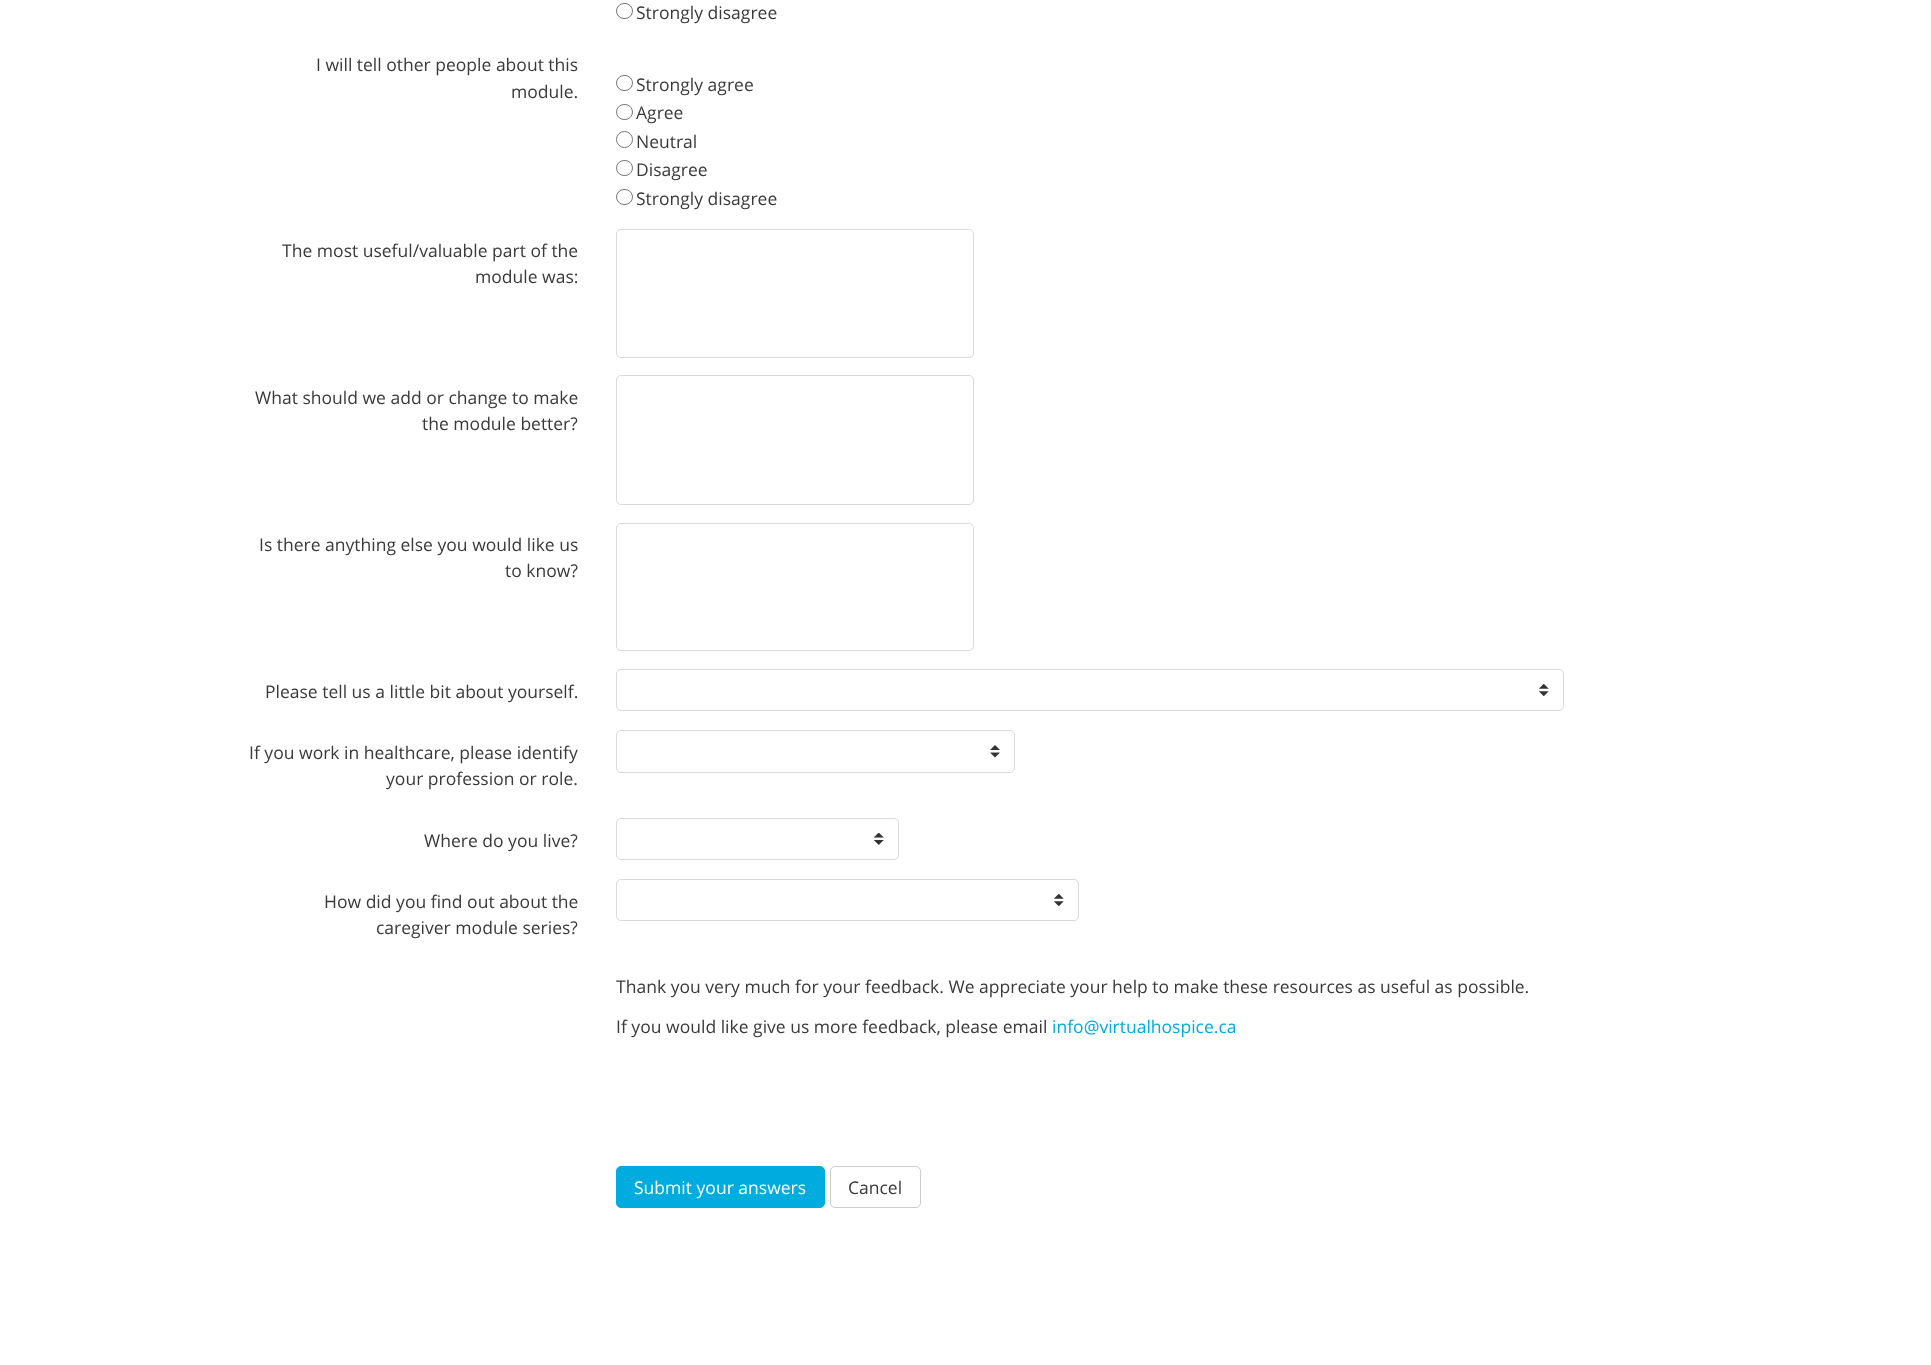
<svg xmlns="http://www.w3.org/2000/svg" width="1931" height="1365">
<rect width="100%" height="100%" fill="#fff"/>
<rect x="616.5" y="3.5" width="16" height="15" rx="7.5" fill="none" stroke="#767676"/>
<text x="636" y="19" style="font-family:Open Sans;font-size:17.5px;fill:#3a3a3a">Strongly disagree</text>
<text x="316" y="71" style="font-family:Open Sans;font-size:17.5px;fill:#3a3a3a">I will tell other people about this</text>
<text x="511" y="98" style="font-family:Open Sans;font-size:17.5px;fill:#3a3a3a">module.</text>
<rect x="616.5" y="75.5" width="16" height="15" rx="7.5" fill="none" stroke="#767676"/>
<text x="636" y="91" style="font-family:Open Sans;font-size:17.5px;fill:#3a3a3a">Strongly agree</text>
<rect x="616.5" y="104.5" width="16" height="15" rx="7.5" fill="none" stroke="#767676"/>
<text x="636" y="119" style="font-family:Open Sans;font-size:17.5px;fill:#3a3a3a">Agree</text>
<circle cx="624.5" cy="139.5" r="8" fill="none" stroke="#767676"/>
<text x="636" y="148" style="font-family:Open Sans;font-size:17.5px;fill:#3a3a3a">Neutral</text>
<rect x="616.5" y="160.5" width="16" height="15" rx="7.5" fill="none" stroke="#767676"/>
<text x="636" y="176" style="font-family:Open Sans;font-size:17.5px;fill:#3a3a3a">Disagree</text>
<rect x="616.5" y="189.5" width="16" height="15" rx="7.5" fill="none" stroke="#767676"/>
<text x="636" y="205" style="font-family:Open Sans;font-size:17.5px;fill:#3a3a3a">Strongly disagree</text>
<text x="282" y="257" style="font-family:Open Sans;font-size:17.5px;fill:#3a3a3a">The most useful/valuable part of the</text>
<text x="475" y="283" style="font-family:Open Sans;font-size:17.5px;fill:#3a3a3a">module was:</text>
<rect x="616.5" y="229.5" width="357" height="128" rx="4.5" fill="none" stroke="#d9d9d9"/>
<text x="255" y="404" style="font-family:Open Sans;font-size:17.5px;fill:#3a3a3a">What should we add or change to make</text>
<text x="422" y="430" style="font-family:Open Sans;font-size:17.5px;fill:#3a3a3a">the module better?</text>
<rect x="616.5" y="375.5" width="357" height="129" rx="4.5" fill="none" stroke="#d9d9d9"/>
<text x="259" y="551" style="font-family:Open Sans;font-size:17.5px;fill:#3a3a3a">Is there anything else you would like us</text>
<text x="505" y="577" style="font-family:Open Sans;font-size:17.5px;fill:#3a3a3a">to know?</text>
<rect x="616.5" y="523.5" width="357" height="127" rx="4.5" fill="none" stroke="#d9d9d9"/>
<text x="265" y="698" style="font-family:Open Sans;font-size:17.5px;fill:#3a3a3a">Please tell us a little bit about yourself.</text>
<image x="1539" y="684" width="10" height="12" href="media/1.png"/>
<rect x="616.5" y="669.5" width="947" height="41" rx="4.5" fill="none" stroke="#d9d9d9"/>
<text x="249" y="759" style="font-family:Open Sans;font-size:17.5px;fill:#3a3a3a">If you work in healthcare, please identify</text>
<text x="386" y="785" style="font-family:Open Sans;font-size:17.5px;fill:#3a3a3a">your profession or role.</text>
<image x="990" y="745" width="10" height="13" href="media/2.png"/>
<rect x="616.5" y="730.5" width="398" height="42" rx="4.5" fill="none" stroke="#d9d9d9"/>
<text x="424" y="847" style="font-family:Open Sans;font-size:17.5px;fill:#3a3a3a">Where do you live?</text>
<image x="874" y="833" width="10" height="12" href="media/3.png"/>
<rect x="616.5" y="818.5" width="282" height="41" rx="4.5" fill="none" stroke="#d9d9d9"/>
<text x="324" y="908" style="font-family:Open Sans;font-size:17.5px;fill:#3a3a3a">How did you find out about the</text>
<text x="376" y="934" style="font-family:Open Sans;font-size:17.5px;fill:#3a3a3a">caregiver module series?</text>
<image x="1054" y="894" width="10" height="12" href="media/1.png"/>
<rect x="616.5" y="879.5" width="462" height="41" rx="4.5" fill="none" stroke="#d9d9d9"/>
<text x="616" y="993" style="font-family:Open Sans;font-size:17.5px;fill:#3a3a3a">Thank you very much for your feedback. We appreciate your help to make these resources as useful as possible.</text>
<text x="616" y="1033" style="font-family:Open Sans;font-size:17.5px;fill:#3a3a3a">If you would like give us more feedback, please email</text>
<text x="1052" y="1033" style="font-family:Open Sans;font-size:17.5px;fill:#00acdf">info@virtualhospice.ca</text>
<rect x="616.5" y="1166.5" width="208" height="41" rx="4.5" fill="#00acdf" stroke="#00acdf"/>
<text x="634" y="1194" style="font-family:Open Sans;font-size:17.5px;fill:#fff">Submit your answers</text>
<rect x="830.5" y="1166.5" width="90" height="41" rx="4.5" fill="none" stroke="#ccc"/>
<text x="848" y="1194" style="font-family:Open Sans;font-size:17.5px;fill:#3a3a3a">Cancel</text>
</svg>
